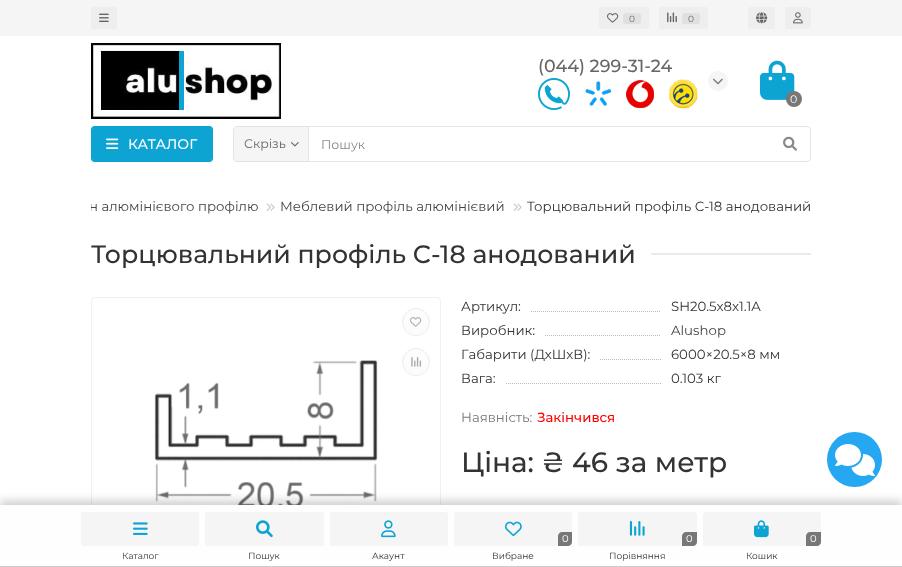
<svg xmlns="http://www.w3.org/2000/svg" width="902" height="567">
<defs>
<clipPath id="clip1"><rect x="91" y="197" width="720" height="29" rx="4"/></clipPath>
</defs>
<rect width="100%" height="100%" fill="#fff"/>
<rect width="902" height="36" fill="#f5f5f5"/>
<rect x="91" y="7" width="26" height="22" rx="3" fill="#eee"/>
<image x="99" y="13" width="10" height="9" href="media/1.png"/>
<rect x="599" y="7" width="50" height="22" rx="3" fill="#eee"/>
<image x="607" y="13" width="12" height="10" href="media/2.png"/>
<rect x="623" y="13" width="18" height="11" rx="3" fill="#e0e0e0"/>
<text x="629" y="22" style="font-family:Montserrat;font-size:9px;fill:#666">0</text>
<rect x="659" y="7" width="49" height="22" rx="3" fill="#eee"/>
<image x="667" y="12" width="10" height="11" href="media/3.png"/>
<rect x="682" y="13" width="18" height="11" rx="3" fill="#e0e0e0"/>
<text x="688" y="22" style="font-family:Montserrat;font-size:9px;fill:#666">0</text>
<rect x="748" y="7" width="27" height="22" rx="3" fill="#eee"/>
<image x="756" y="12" width="12" height="12" href="media/4.png"/>
<rect x="785" y="7" width="26" height="22" rx="3" fill="#eee"/>
<image x="793" y="12" width="10" height="12" href="media/5.png"/>
<image x="91" y="43" width="190" height="76" href="media/6.png"/>
<text x="538" y="72" style="font-family:Montserrat;font-size:17.5px;font-weight:500;fill:#666">(044) 299-31-24</text>
<image x="538" y="78" width="32" height="32" href="media/7.png"/>
<image x="585" y="81" width="27" height="25" href="media/8.png"/>
<image x="626" y="80" width="28" height="28" href="media/9.png"/>
<image x="668" y="79" width="30" height="30" href="media/10.png"/>
<circle cx="718" cy="81" r="10" fill="#f5f5f5"/>
<image x="713" y="78" width="10" height="7" href="media/11.png"/>
<image x="760" y="60" width="35" height="40" href="media/12.png"/>
<circle cx="794" cy="99" r="8" fill="#777"/>
<text x="790" y="103" style="font-family:Montserrat;font-size:11px;fill:#fff">0</text>
<rect x="91" y="126" width="122" height="36" rx="4" fill="#0da4d3"/>
<image x="106" y="138" width="13" height="11" href="media/13.png"/>
<text x="128" y="149" style="font-family:Montserrat;font-size:14px;font-weight:500;fill:#fff">КАТАЛОГ</text>
<path d="M237 126h71v36h-71c-2 0-4-2-4-4v-28c0-2 2-4 4-4z" fill="#f5f5f5"/>
<path d="M237 126h71v36h-71c-2 0-4-2-4-4v-28c0-2 2-4 4-4zm0 1h71v34h-71c-2 0-3-1-3-3v-28c0-2 1-3 3-3z" fill="#00000012" fill-rule="evenodd"/>
<text x="244" y="148" style="font-family:Montserrat;font-size:12.5px;fill:#666">Скрізь</text>
<image x="291" y="142" width="8" height="5" href="media/14.png"/>
<path d="M308.5 126.5h498.5c2 0 3.5 1.5 3.5 3.5v28c0 2-1.5 3.5-3.5 3.5h-498.5z" fill="none" stroke="#e3e3e3"/>
<text x="321" y="149" style="font-family:Montserrat;font-size:12.5px;fill:#888">Пошук</text>
<image x="783" y="136" width="14" height="15" href="media/15.png"/>
<g clip-path="url(#clip1)">
<text x="89" y="211" style="font-family:Montserrat;font-size:13.3px;fill:#444">н алюмінієвого профілю</text>
</g>
<image x="266" y="203" width="9" height="8" href="media/16.png"/>
<text x="280" y="211" style="font-family:Montserrat;font-size:13.3px;fill:#444">Меблевий профіль алюмінієвий</text>
<image x="513" y="203" width="9" height="8" href="media/16.png"/>
<text x="527" y="211" style="font-family:Montserrat;font-size:13.3px;fill:#333">Торцювальний профіль С-18 анодований</text>
<text x="91" y="263" style="font-family:Montserrat;font-size:25.2px;font-weight:500;fill:#333">Торцювальний профіль С-18 анодований</text>
<rect x="651" y="253" width="160" height="2" fill="#ebebeb"/>
<rect x="91.5" y="297.5" width="349" height="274" rx="3.5" fill="none" stroke="#f0f0f0"/>
<circle cx="416" cy="322" r="13.5" fill="#fcfcfc" stroke="#ededed"/>
<image x="410" y="317" width="12" height="10" href="media/17.png"/>
<image x="154" y="360" width="224" height="145" href="media/18.png"/>
<circle cx="416" cy="362" r="13.5" fill="#fcfcfc" stroke="#ededed"/>
<image x="411" y="357" width="11" height="10" href="media/19.png"/>
<text x="461" y="311" style="font-family:Montserrat;font-size:13.3px;fill:#333">Артикул:</text>
<path d="M531 311.5h130" fill="none" stroke="#bbb" stroke-dasharray="1 1"/>
<text x="671" y="311" style="font-family:Montserrat;font-size:13.3px;fill:#333">SH20.5x8x1.1A</text>
<text x="461" y="335" style="font-family:Montserrat;font-size:13.3px;fill:#333">Виробник:</text>
<path d="M545 335.5h116" fill="none" stroke="#bbb" stroke-dasharray="1 1"/>
<text x="671" y="335" style="font-family:Montserrat;font-size:13.3px;fill:#444">Alushop</text>
<text x="461" y="359" style="font-family:Montserrat;font-size:13.3px;fill:#333">Габарити (ДхШхВ):</text>
<path d="M600 359.5h61" fill="none" stroke="#bbb" stroke-dasharray="1 1"/>
<text x="671" y="359" style="font-family:Montserrat;font-size:13.3px;fill:#333">6000×20.5×8 мм</text>
<text x="461" y="383" style="font-family:Montserrat;font-size:13.3px;fill:#333">Вага:</text>
<path d="M506 383.5h155" fill="none" stroke="#bbb" stroke-dasharray="1 1"/>
<text x="671" y="383" style="font-family:Montserrat;font-size:13.3px;fill:#333">0.103 кг</text>
<text x="461" y="422" style="font-family:Montserrat;font-size:13.3px;fill:#777">Наявність:</text>
<text x="537" y="422" style="font-family:Montserrat;font-size:13.3px;font-weight:500;fill:#f00">Закiнчився</text>
<text x="461" y="472" style="font-family:Montserrat;font-size:28px;font-weight:500;fill:#333">Цiна: ₴ 46 за метр</text>
<rect y="501" width="902" height="62" fill="#00000033" filter="blur(5px)"/>
<circle cx="854.5" cy="459.5" r="27.5" fill="#25a7f2"/>
<image x="835" y="444" width="40" height="32" href="media/20.png"/>
<rect y="505" width="902" height="61" fill="#fefefe"/>
<rect y="566" width="902" height="1" fill="#ccc"/>
<rect x="81" y="512" width="118" height="34" rx="3" fill="#f5f5f5"/>
<image x="133" y="522" width="15" height="13" href="media/21.png"/>
<text x="122" y="559" style="font-family:Montserrat;font-size:9px;fill:#333">Каталог</text>
<rect x="205" y="512" width="119" height="34" rx="3" fill="#f5f5f5"/>
<image x="256" y="520" width="17" height="18" href="media/22.png"/>
<text x="248" y="559" style="font-family:Montserrat;font-size:9px;fill:#333">Пошук</text>
<rect x="330" y="512" width="118" height="34" rx="3" fill="#f5f5f5"/>
<image x="381" y="520" width="15" height="18" href="media/23.png"/>
<text x="372" y="559" style="font-family:Montserrat;font-size:9px;fill:#333">Акаунт</text>
<rect x="454" y="512" width="118" height="34" rx="3" fill="#f5f5f5"/>
<image x="505" y="521" width="17" height="15" href="media/24.png"/>
<path d="M562 532h10v10c0 2-2 4-4 4h-10v-10c0-2 2-4 4-4z" fill="#777"/>
<text x="562" y="542" style="font-family:Montserrat;font-size:10px;fill:#fff">0</text>
<text x="492" y="559" style="font-family:Montserrat;font-size:9px;fill:#333">Вибране</text>
<rect x="578" y="512" width="119" height="34" rx="3" fill="#f5f5f5"/>
<image x="629" y="521" width="16" height="15" href="media/25.png"/>
<path d="M686 532h11v10c0 2-2 4-4 4h-11v-10c0-2 2-4 4-4z" fill="#777"/>
<text x="686" y="542" style="font-family:Montserrat;font-size:10px;fill:#fff">0</text>
<text x="609" y="559" style="font-family:Montserrat;font-size:9px;fill:#333">Порівняння</text>
<rect x="703" y="512" width="118" height="34" rx="3" fill="#f5f5f5"/>
<image x="754" y="520" width="15" height="18" href="media/26.png"/>
<path d="M810 532h11v10c0 2-2 4-4 4h-11v-10c0-2 2-4 4-4z" fill="#777"/>
<text x="810" y="542" style="font-family:Montserrat;font-size:10px;fill:#fff">0</text>
<text x="746" y="559" style="font-family:Montserrat;font-size:9px;fill:#333">Кошик</text>
</svg>
